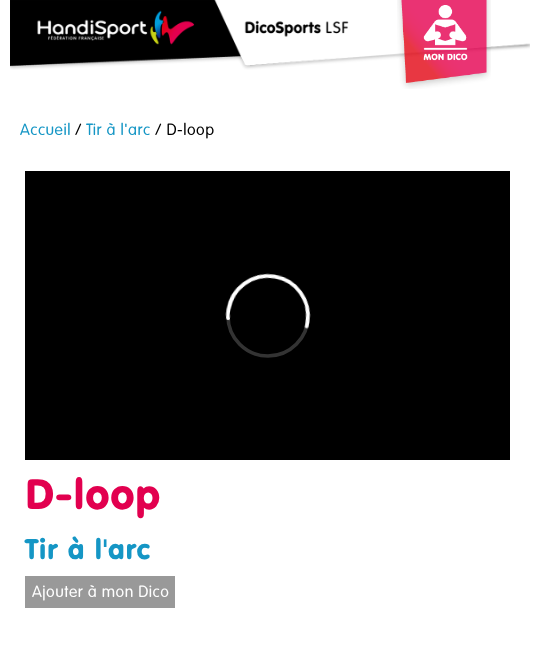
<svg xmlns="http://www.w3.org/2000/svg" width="535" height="650">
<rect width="100%" height="100%" fill="#fff"/>
<image x="10" y="0" width="520" height="70" href="media/1.png"/>
<image x="397" y="0" width="94" height="89" href="media/2.png"/>
<text x="20" y="135" style="font-family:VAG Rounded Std;font-size:16px;font-weight:300;letter-spacing:0.5px;fill:#1596c5">Accueil</text>
<text x="75" y="135" style="font-family:VAG Rounded Std;font-size:16px;font-weight:300;letter-spacing:0.5px;fill:#000">/</text>
<text x="86" y="135" style="font-family:VAG Rounded Std;font-size:16px;font-weight:300;letter-spacing:0.5px;fill:#1596c5">Tir à l'arc</text>
<text x="155" y="135" style="font-family:VAG Rounded Std;font-size:16px;font-weight:300;letter-spacing:0.5px;fill:#000">/ D-loop</text>
<image x="25" y="171" width="485" height="289" href="media/3.png"/>
<text x="25" y="509" style="font-family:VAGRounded;font-size:42px;letter-spacing:0.5px;fill:#e2004f">D-loop</text>
<text x="25" y="559" style="font-family:VAGRounded;font-size:28px;letter-spacing:0.5px;fill:#1596c5">Tir à l'arc</text>
<rect x="25" y="576" width="150" height="32" fill="#999"/>
<text x="32" y="597" style="font-family:VAG Rounded Std;font-size:16px;font-weight:300;letter-spacing:0.5px;fill:#fff">Ajouter à mon Dico</text>
</svg>
